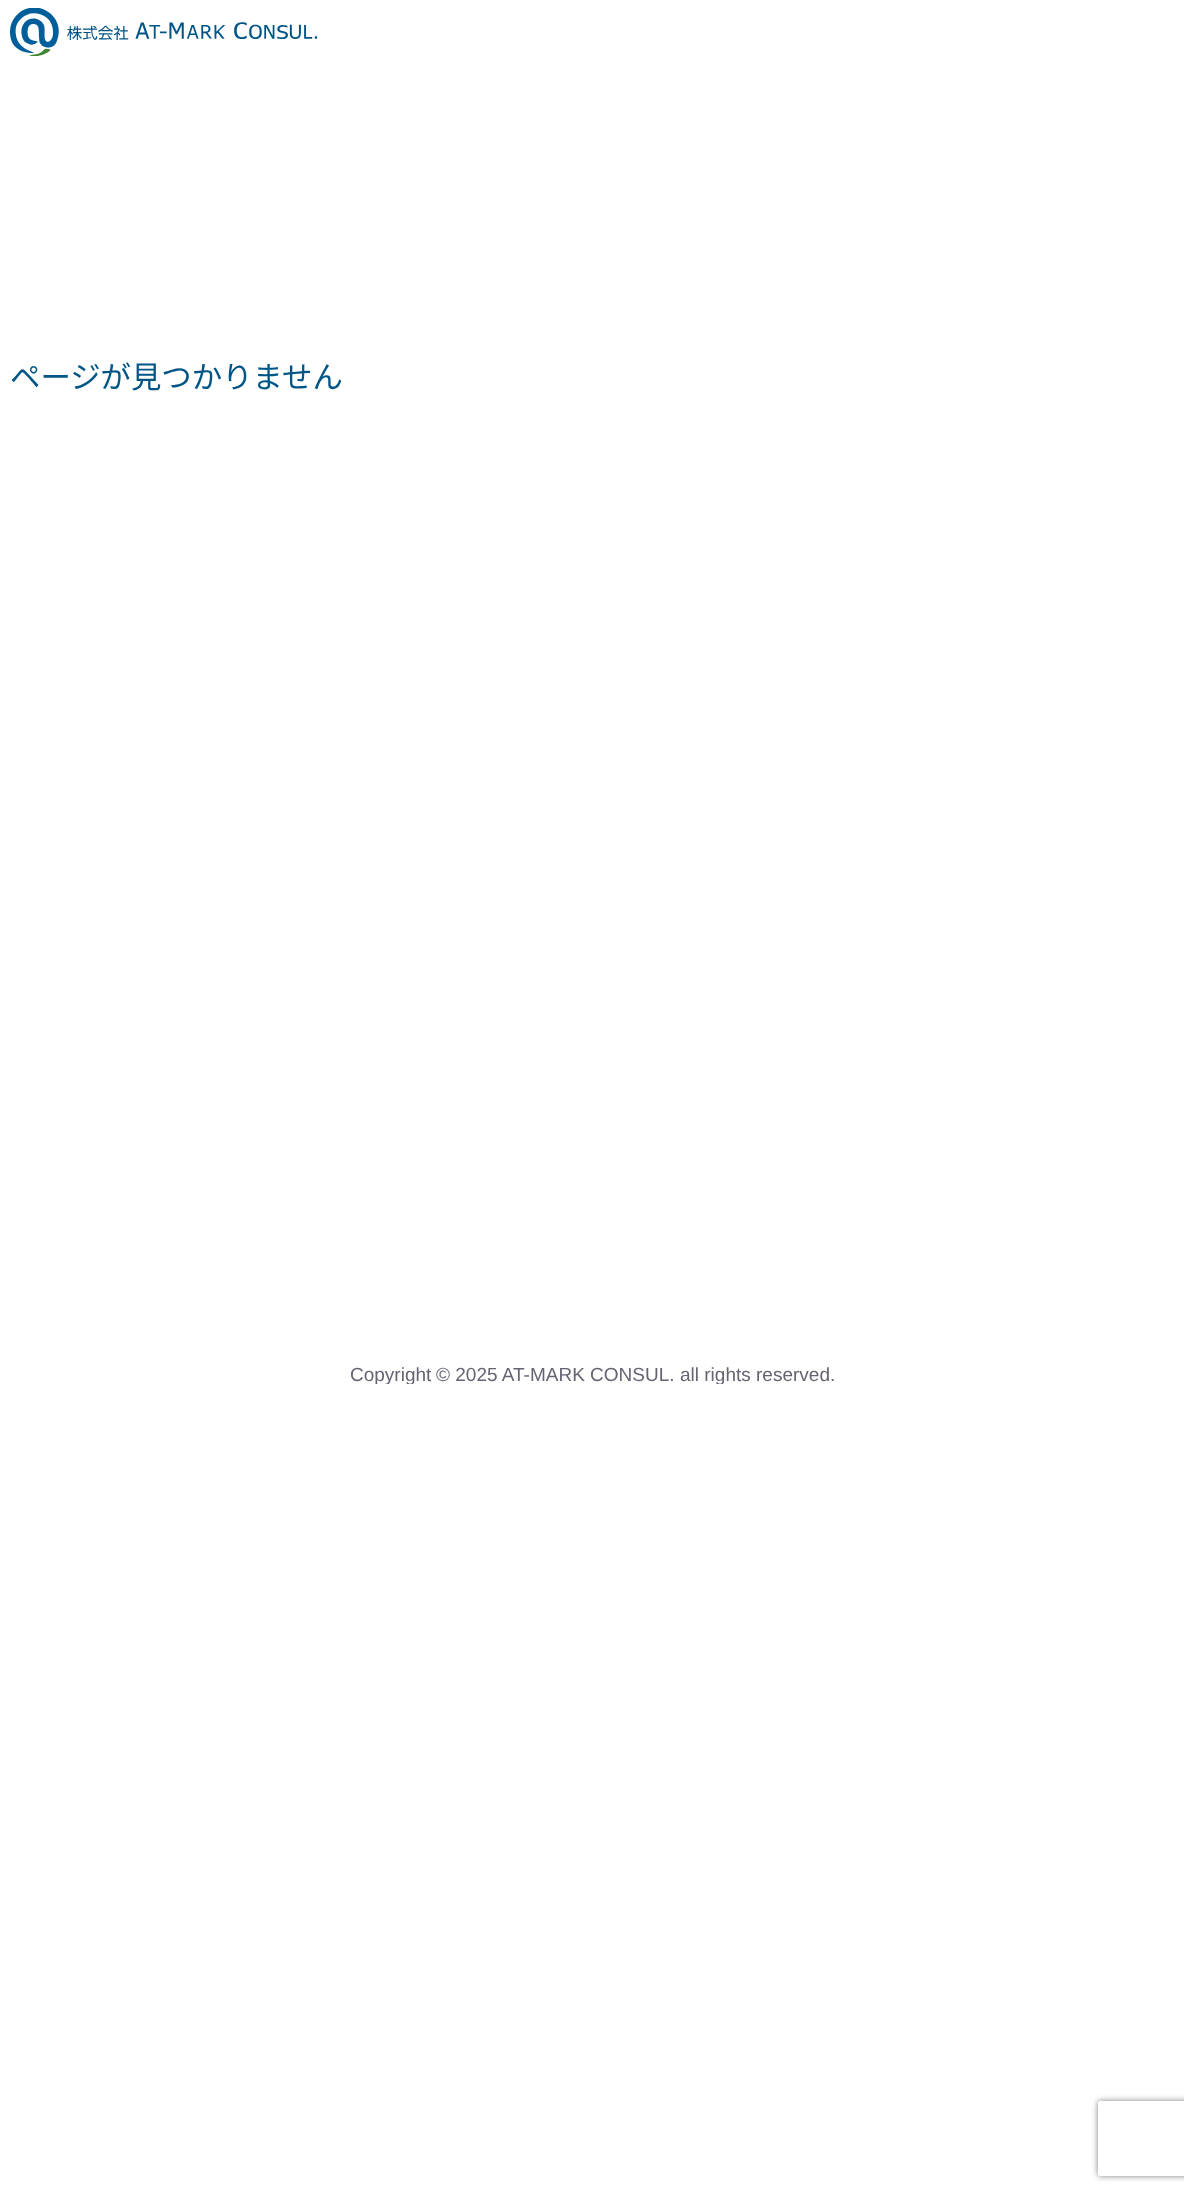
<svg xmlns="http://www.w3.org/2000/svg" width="1184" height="2193">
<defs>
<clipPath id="clip1"><rect x="350" y="1364" width="485" height="20"/></clipPath>
<clipPath id="clip2"><path d="M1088 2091h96v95h-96zm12.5 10h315c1.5 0 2.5 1 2.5 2.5v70c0 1.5-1 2.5-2.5 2.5h-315c-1.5 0-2.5-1-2.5-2.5v-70c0-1.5 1-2.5 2.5-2.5z" clip-rule="evenodd"/></clipPath>
</defs>
<rect width="100%" height="100%" fill="#fff"/>
<image x="10" y="8" width="308" height="48" href="media/1.png"/>
<text x="10" y="388" style="font-family:Noto Sans JP;font-size:30.4px;fill:#005587">ページが見つかりません</text>
<g clip-path="url(#clip1)">
<text x="350" y="1381" style="font-family:Liberation Sans;font-size:19px;fill:#646473">Copyright</text>
</g>
<text x="436" y="1381" style="font-family:Liberation Sans;font-size:19px;fill:#646473">© 2025 AT-MARK CONSUL.</text>
<g clip-path="url(#clip1)">
<text x="680" y="1381" style="font-family:Liberation Sans;font-size:19px;fill:#646473">all rights reserved.</text>
</g>
<g clip-path="url(#clip2)">
<rect x="1098" y="2101" width="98" height="75" rx="2.5" fill="#808080" filter="blur(3px)"/>
</g>
</svg>
